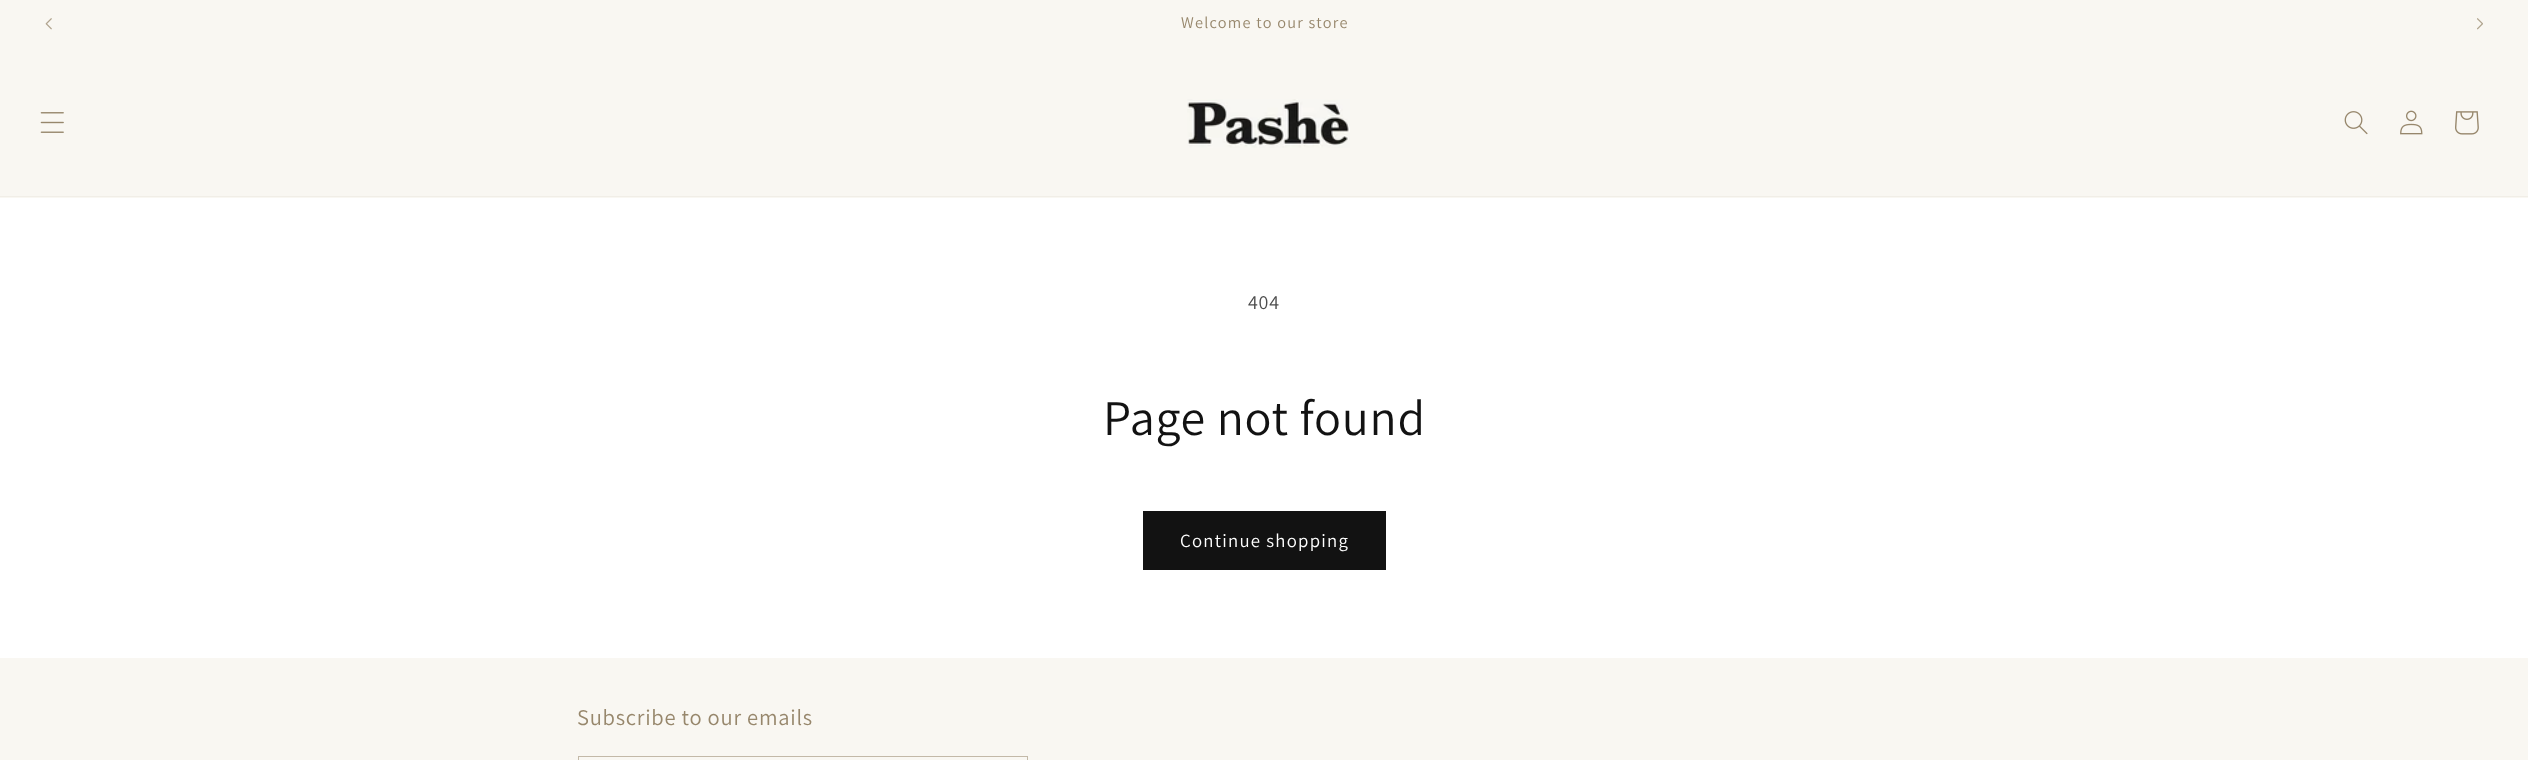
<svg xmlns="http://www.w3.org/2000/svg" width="2528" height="760">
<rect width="100%" height="100%" fill="#fff"/>
<rect width="2528" height="198" fill="#f9f7f2"/>
<rect y="196" width="2528" height="1" fill="#f1eee7"/>
<image x="40" y="112" width="24" height="21" href="media/1.png"/>
<image x="1187" y="99" width="163" height="49" href="media/2.png"/>
<image x="2344" y="111" width="24" height="24" href="media/3.png"/>
<image x="2400" y="110" width="23" height="25" href="media/4.png"/>
<image x="2455" y="111" width="24" height="24" href="media/5.png"/>
<image x="45" y="18" width="7" height="12" href="media/6.png"/>
<text x="1181" y="28" style="font-family:Assistant;font-size:16.25px;letter-spacing:1.25px;fill:#97876c">Welcome to our store</text>
<image x="2477" y="18" width="6" height="12" href="media/7.png"/>
<text x="1248" y="309" style="font-family:Assistant;font-size:20px;letter-spacing:0.75px;fill:#4d4d4d">404</text>
<text x="1103" y="435" style="font-family:Assistant;font-size:50px;letter-spacing:0.75px;fill:#121212">Page not found</text>
<rect x="1143" y="511" width="243" height="59" fill="#121212"/>
<text x="1180" y="547" style="font-family:Assistant;font-size:18.75px;letter-spacing:1.25px;fill:#fff">Continue shopping</text>
<rect y="658" width="2528" height="102" fill="#f9f7f2"/>
<text x="577" y="725" style="font-family:Assistant;font-size:22.5px;letter-spacing:0.75px;fill:#97876c">Subscribe to our emails</text>
<rect x="578.5" y="756.5" width="449" height="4" fill="none" stroke="#c3b9a8"/>
</svg>
